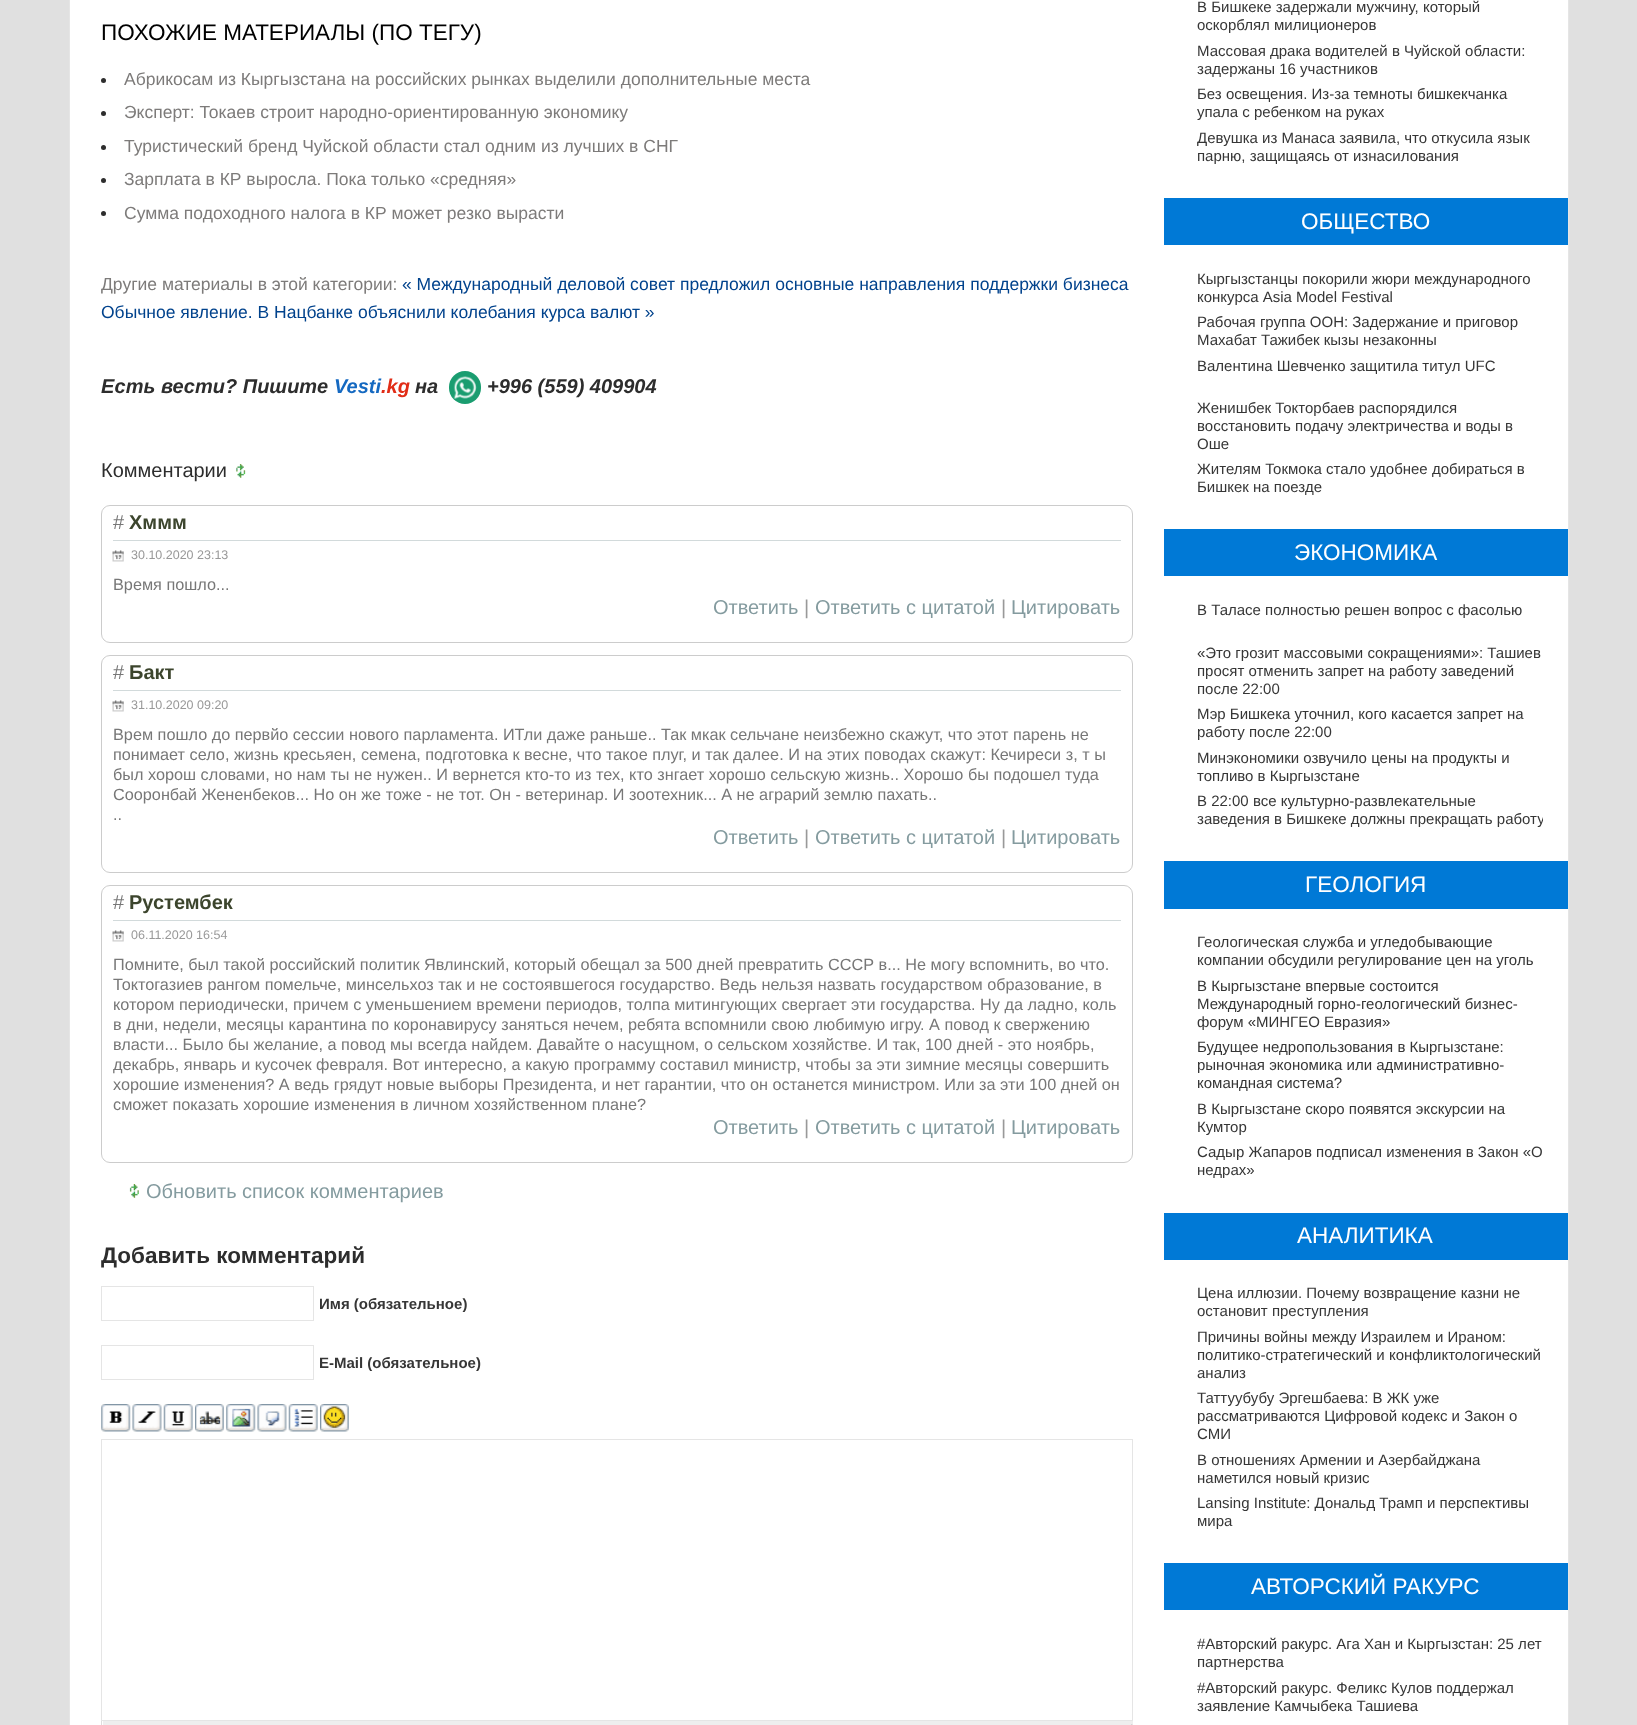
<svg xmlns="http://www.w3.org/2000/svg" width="1637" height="1725">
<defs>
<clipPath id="clip1"><rect x="1190" y="793" width="353" height="43"/></clipPath>
</defs>
<rect width="100%" height="100%" fill="#e0e0e0"/>
<rect x="70" width="1498" height="1725" fill="#fff"/>
<rect x="1568" width="1" height="1725" fill="#e5e5e5"/>
<rect x="69" width="1" height="1725" fill="#e5e5e5"/>
<text x="101" y="40" style="font-family:Liberation Sans;font-size:22.5px;fill:#000">ПОХОЖИЕ МАТЕРИАЛЫ (ПО ТЕГУ)</text>
<circle cx="103.5" cy="80.5" r="2.5" fill="#2d2d2d"/>
<text x="124" y="85" style="font-family:Liberation Sans;font-size:17.5px;fill:#7d7b7a">Абрикосам из Кыргызстана на российских рынках выделили дополнительные места</text>
<circle cx="103.5" cy="113.5" r="2.5" fill="#2d2d2d"/>
<text x="124" y="118" style="font-family:Liberation Sans;font-size:17.5px;fill:#7d7b7a">Эксперт: Токаев строит народно-ориентированную экономику</text>
<circle cx="103.5" cy="147.5" r="2.5" fill="#2d2d2d"/>
<text x="124" y="152" style="font-family:Liberation Sans;font-size:17.5px;fill:#7d7b7a">Туристический бренд Чуйской области стал одним из лучших в СНГ</text>
<circle cx="103.5" cy="180.5" r="2.5" fill="#2d2d2d"/>
<text x="124" y="185" style="font-family:Liberation Sans;font-size:17.5px;fill:#7d7b7a">Зарплата в КР выросла. Пока только «средняя»</text>
<circle cx="103.5" cy="213.5" r="2.5" fill="#2d2d2d"/>
<text x="124" y="219" style="font-family:Liberation Sans;font-size:17.5px;fill:#7d7b7a">Сумма подоходного налога в КР может резко вырасти</text>
<text x="101" y="290" style="font-family:Liberation Sans;font-size:17.5px;fill:#7d7b7a">Другие материалы в этой категории:</text>
<text x="402" y="290" style="font-family:Liberation Sans;font-size:17.5px;fill:#00428c">« Международный деловой совет предложил основные направления поддержки бизнеса</text>
<text x="101" y="318" style="font-family:Liberation Sans;font-size:17.5px;fill:#00428c">Обычное явление. В Нацбанке объяснили колебания курса валют »</text>
<text x="101" y="393" style="font-family:Liberation Sans;font-size:20px;font-weight:bold;font-style:italic;fill:#2d2d2d">Есть вести? Пишите</text>
<text x="334" y="393" style="font-family:Liberation Sans;font-size:20px;font-weight:bold;font-style:italic;fill:#1569c1">Vesti</text>
<text x="381" y="393" style="font-family:Liberation Sans;font-size:20px;font-weight:bold;font-style:italic;fill:#e12c16">.kg</text>
<text x="415" y="393" style="font-family:Liberation Sans;font-size:20px;font-weight:bold;font-style:italic;fill:#2d2d2d">на</text>
<rect x="449" y="371" width="32" height="33" rx="16" fill="#1a9d70"/>
<image x="453" y="376" width="24" height="24" href="media/1.png"/>
<text x="487" y="393" style="font-family:Liberation Sans;font-size:20px;font-weight:bold;font-style:italic;fill:#2d2d2d">+996 (559) 409904</text>
<text x="101" y="477" style="font-family:Liberation Sans;font-size:20px;fill:#2d2d2d">Комментарии</text>
<image x="236" y="464" width="10" height="14" href="media/2.png"/>
<rect x="101.5" y="505.5" width="1031" height="137" rx="8.5" fill="none" stroke="#ccc"/>
<text x="113" y="529" style="font-family:Liberation Sans;font-size:20px;fill:#777">#</text>
<text x="129" y="529" style="font-family:Liberation Sans;font-size:20px;font-weight:bold;fill:#3c452d">Хммм</text>
<image x="112" y="550" width="12" height="12" href="media/3.png"/>
<rect x="113" y="540" width="1008" height="1" fill="#d2dadb"/>
<text x="131" y="559" style="font-family:Liberation Sans;font-size:12.5px;fill:#999">30.10.2020 23:13</text>
<text x="113" y="590" style="font-family:Liberation Sans;font-size:16.25px;fill:#777">Время пошло...</text>
<text x="713" y="614" style="font-family:Liberation Sans;font-size:20px;fill:#849b9f">Ответить</text>
<text x="804" y="614" style="font-family:Liberation Sans;font-size:20px;fill:#999">|</text>
<text x="815" y="614" style="font-family:Liberation Sans;font-size:20px;fill:#849b9f">Ответить с цитатой</text>
<text x="1001" y="614" style="font-family:Liberation Sans;font-size:20px;fill:#999">|</text>
<text x="1011" y="614" style="font-family:Liberation Sans;font-size:20px;fill:#849b9f">Цитировать</text>
<rect x="101.5" y="655.5" width="1031" height="217" rx="8.5" fill="none" stroke="#ccc"/>
<text x="113" y="679" style="font-family:Liberation Sans;font-size:20px;fill:#777">#</text>
<text x="129" y="679" style="font-family:Liberation Sans;font-size:20px;font-weight:bold;fill:#3c452d">Бакт</text>
<image x="112" y="700" width="12" height="12" href="media/3.png"/>
<rect x="113" y="690" width="1008" height="1" fill="#d2dadb"/>
<text x="131" y="709" style="font-family:Liberation Sans;font-size:12.5px;fill:#999">31.10.2020 09:20</text>
<text x="113" y="740" style="font-family:Liberation Sans;font-size:16.25px;fill:#777">Врем пошло до первйо сессии нового парламента. ИТли даже раньше.. Так мкак сельчане неизбежно скажут, что этот парень не</text>
<text x="113" y="760" style="font-family:Liberation Sans;font-size:16.25px;fill:#777">понимает село, жизнь кресьяен, семена, подготовка к весне, что такое плуг, и так далее. И на этих поводах скажут: Кечиреси з, т ы</text>
<text x="113" y="780" style="font-family:Liberation Sans;font-size:16.25px;fill:#777">был хорош словами, но нам ты не нужен.. И вернется кто-то из тех, кто знгает хорошо сельскую жизнь.. Хорошо бы подошел туда</text>
<text x="113" y="800" style="font-family:Liberation Sans;font-size:16.25px;fill:#777">Сооронбай Жененбеков... Но он же тоже - не тот. Он - ветеринар. И зоотехник... А не аграрий землю пахать..</text>
<text x="113" y="820" style="font-family:Liberation Sans;font-size:16.25px;fill:#777">..</text>
<text x="713" y="844" style="font-family:Liberation Sans;font-size:20px;fill:#849b9f">Ответить</text>
<text x="804" y="844" style="font-family:Liberation Sans;font-size:20px;fill:#999">|</text>
<text x="815" y="844" style="font-family:Liberation Sans;font-size:20px;fill:#849b9f">Ответить с цитатой</text>
<text x="1001" y="844" style="font-family:Liberation Sans;font-size:20px;fill:#999">|</text>
<text x="1011" y="844" style="font-family:Liberation Sans;font-size:20px;fill:#849b9f">Цитировать</text>
<rect x="101.5" y="885.5" width="1031" height="277" rx="8.5" fill="none" stroke="#ccc"/>
<text x="113" y="909" style="font-family:Liberation Sans;font-size:20px;fill:#777">#</text>
<text x="129" y="909" style="font-family:Liberation Sans;font-size:20px;font-weight:bold;fill:#3c452d">Рустембек</text>
<image x="112" y="930" width="12" height="12" href="media/3.png"/>
<rect x="113" y="920" width="1008" height="1" fill="#d2dadb"/>
<text x="131" y="939" style="font-family:Liberation Sans;font-size:12.5px;fill:#999">06.11.2020 16:54</text>
<text x="113" y="970" style="font-family:Liberation Sans;font-size:16.25px;fill:#777">Помните, был такой российский политик Явлинский, который обещал за 500 дней превратить СССР в... Не могу вспомнить, во что.</text>
<text x="113" y="990" style="font-family:Liberation Sans;font-size:16.25px;fill:#777">Токтогазиев рангом помельче, минсельхоз так и не состоявшегося государство. Ведь нельзя назвать государством образование, в</text>
<text x="113" y="1010" style="font-family:Liberation Sans;font-size:16.25px;fill:#777">котором периодически, причем с уменьшением времени периодов, толпа митингующих свергает эти государства. Ну да ладно, коль</text>
<text x="113" y="1030" style="font-family:Liberation Sans;font-size:16.25px;fill:#777">в дни, недели, месяцы карантина по коронавирусу заняться нечем, ребята вспомнили свою любимую игру. А повод к свержению</text>
<text x="113" y="1050" style="font-family:Liberation Sans;font-size:16.25px;fill:#777">власти... Было бы желание, а повод мы всегда найдем. Давайте о насущном, о сельском хозяйстве. И так, 100 дней - это ноябрь,</text>
<text x="113" y="1070" style="font-family:Liberation Sans;font-size:16.25px;fill:#777">декабрь, январь и кусочек февраля. Вот интересно, а какую программу составил министр, чтобы за эти зимние месяцы совершить</text>
<text x="113" y="1090" style="font-family:Liberation Sans;font-size:16.25px;fill:#777">хорошие изменения? А ведь грядут новые выборы Президента, и нет гарантии, что он останется министром. Или за эти 100 дней он</text>
<text x="113" y="1110" style="font-family:Liberation Sans;font-size:16.25px;fill:#777">сможет показать хорошие изменения в личном хозяйственном плане?</text>
<text x="713" y="1134" style="font-family:Liberation Sans;font-size:20px;fill:#849b9f">Ответить</text>
<text x="804" y="1134" style="font-family:Liberation Sans;font-size:20px;fill:#999">|</text>
<text x="815" y="1134" style="font-family:Liberation Sans;font-size:20px;fill:#849b9f">Ответить с цитатой</text>
<text x="1001" y="1134" style="font-family:Liberation Sans;font-size:20px;fill:#999">|</text>
<text x="1011" y="1134" style="font-family:Liberation Sans;font-size:20px;fill:#849b9f">Цитировать</text>
<image x="129" y="1184" width="10" height="14" href="media/4.png"/>
<text x="146" y="1198" style="font-family:Liberation Sans;font-size:20px;fill:#849b9f">Обновить список комментариев</text>
<text x="101" y="1263" style="font-family:Liberation Sans;font-size:22.5px;font-weight:bold;fill:#2d2d2d">Добавить комментарий</text>
<rect x="101.5" y="1286.5" width="212" height="34" fill="none" stroke="#e5e5e5"/>
<text x="319" y="1309" style="font-family:Liberation Sans;font-size:15px;font-weight:bold;fill:#363636">Имя (обязательное)</text>
<rect x="101.5" y="1345.5" width="212" height="34" fill="none" stroke="#e5e5e5"/>
<text x="319" y="1368" style="font-family:Liberation Sans;font-size:15px;font-weight:bold;fill:#363636">E-Mail (обязательное)</text>
<image x="101" y="1404" width="30" height="28" href="media/5.png"/>
<image x="132" y="1404" width="30" height="28" href="media/6.png"/>
<image x="163" y="1404" width="30" height="28" href="media/7.png"/>
<image x="195" y="1404" width="29" height="28" href="media/8.png"/>
<image x="226" y="1404" width="30" height="28" href="media/9.png"/>
<image x="257" y="1404" width="30" height="28" href="media/10.png"/>
<image x="288" y="1404" width="30" height="28" href="media/11.png"/>
<image x="320" y="1404" width="29" height="28" href="media/12.png"/>
<rect x="101.5" y="1439.5" width="1031" height="281" fill="none" stroke="#e5e5e5"/>
<rect x="103" y="1721" width="1030" height="4" fill="#eee"/>
<image x="1131" y="1724" width="2" height="1" href="media/13.png"/>
<rect x="101" y="1721" width="1" height="4" fill="#ddd"/>
<text x="1197" y="12" style="font-family:Liberation Sans;font-size:15px;fill:#363636">В Бишкеке задержали мужчину, который</text>
<text x="1197" y="30" style="font-family:Liberation Sans;font-size:15px;fill:#363636">оскорблял милиционеров</text>
<text x="1197" y="56" style="font-family:Liberation Sans;font-size:15px;fill:#363636">Массовая драка водителей в Чуйской области:</text>
<text x="1197" y="74" style="font-family:Liberation Sans;font-size:15px;fill:#363636">задержаны 16 участников</text>
<text x="1197" y="99" style="font-family:Liberation Sans;font-size:15px;fill:#363636">Без освещения. Из-за темноты бишкекчанка</text>
<text x="1197" y="117" style="font-family:Liberation Sans;font-size:15px;fill:#363636">упала с ребенком на руках</text>
<text x="1197" y="143" style="font-family:Liberation Sans;font-size:15px;fill:#363636">Девушка из Манаса заявила, что откусила язык</text>
<text x="1197" y="161" style="font-family:Liberation Sans;font-size:15px;fill:#363636">парню, защищаясь от изнасилования</text>
<rect x="1164" y="198" width="404" height="47" fill="#0079d6"/>
<text x="1301" y="229" style="font-family:Liberation Sans;font-size:22.5px;fill:#fff">ОБЩЕСТВО</text>
<text x="1197" y="284" style="font-family:Liberation Sans;font-size:15px;fill:#363636">Кыргызстанцы покорили жюри международного</text>
<text x="1197" y="302" style="font-family:Liberation Sans;font-size:15px;fill:#363636">конкурса Asia Model Festival</text>
<text x="1197" y="327" style="font-family:Liberation Sans;font-size:15px;fill:#363636">Рабочая группа ООН: Задержание и приговор</text>
<text x="1197" y="345" style="font-family:Liberation Sans;font-size:15px;fill:#363636">Махабат Тажибек кызы незаконны</text>
<text x="1197" y="371" style="font-family:Liberation Sans;font-size:15px;fill:#363636">Валентина Шевченко защитила титул UFC</text>
<text x="1197" y="413" style="font-family:Liberation Sans;font-size:15px;fill:#363636">Женишбек Токторбаев распорядился</text>
<text x="1197" y="431" style="font-family:Liberation Sans;font-size:15px;fill:#363636">восстановить подачу электричества и воды в</text>
<text x="1197" y="449" style="font-family:Liberation Sans;font-size:15px;fill:#363636">Оше</text>
<text x="1197" y="474" style="font-family:Liberation Sans;font-size:15px;fill:#363636">Жителям Токмока стало удобнее добираться в</text>
<text x="1197" y="492" style="font-family:Liberation Sans;font-size:15px;fill:#363636">Бишкек на поезде</text>
<rect x="1164" y="529" width="404" height="47" fill="#0079d6"/>
<text x="1294" y="560" style="font-family:Liberation Sans;font-size:22.5px;fill:#fff">ЭКОНОМИКА</text>
<text x="1197" y="615" style="font-family:Liberation Sans;font-size:15px;fill:#363636">В Таласе полностью решен вопрос с фасолью</text>
<text x="1197" y="658" style="font-family:Liberation Sans;font-size:15px;fill:#363636">«Это грозит массовыми сокращениями»: Ташиев</text>
<text x="1197" y="676" style="font-family:Liberation Sans;font-size:15px;fill:#363636">просят отменить запрет на работу заведений</text>
<text x="1197" y="694" style="font-family:Liberation Sans;font-size:15px;fill:#363636">после 22:00</text>
<text x="1197" y="719" style="font-family:Liberation Sans;font-size:15px;fill:#363636">Мэр Бишкека уточнил, кого касается запрет на</text>
<text x="1197" y="737" style="font-family:Liberation Sans;font-size:15px;fill:#363636">работу после 22:00</text>
<text x="1197" y="763" style="font-family:Liberation Sans;font-size:15px;fill:#363636">Минэкономики озвучило цены на продукты и</text>
<text x="1197" y="781" style="font-family:Liberation Sans;font-size:15px;fill:#363636">топливо в Кыргызстане</text>
<text x="1197" y="806" style="font-family:Liberation Sans;font-size:15px;fill:#363636">В 22:00 все культурно-развлекательные</text>
<g clip-path="url(#clip1)">
<text x="1197" y="824" style="font-family:Liberation Sans;font-size:15px;fill:#363636">заведения в Бишкеке должны прекращать работу</text>
</g>
<rect x="1164" y="861" width="404" height="48" fill="#0079d6"/>
<text x="1305" y="892" style="font-family:Liberation Sans;font-size:22.5px;fill:#fff">ГЕОЛОГИЯ</text>
<text x="1197" y="947" style="font-family:Liberation Sans;font-size:15px;fill:#363636">Геологическая служба и угледобывающие</text>
<text x="1197" y="965" style="font-family:Liberation Sans;font-size:15px;fill:#363636">компании обсудили регулирование цен на уголь</text>
<text x="1197" y="991" style="font-family:Liberation Sans;font-size:15px;fill:#363636">В Кыргызстане впервые состоится</text>
<text x="1197" y="1009" style="font-family:Liberation Sans;font-size:15px;fill:#363636">Международный горно-геологический бизнес-</text>
<text x="1197" y="1027" style="font-family:Liberation Sans;font-size:15px;fill:#363636">форум «МИНГЕО Евразия»</text>
<text x="1197" y="1052" style="font-family:Liberation Sans;font-size:15px;fill:#363636">Будущее недропользования в Кыргызстане:</text>
<text x="1197" y="1070" style="font-family:Liberation Sans;font-size:15px;fill:#363636">рыночная экономика или административно-</text>
<text x="1197" y="1088" style="font-family:Liberation Sans;font-size:15px;fill:#363636">командная система?</text>
<text x="1197" y="1114" style="font-family:Liberation Sans;font-size:15px;fill:#363636">В Кыргызстане скоро появятся экскурсии на</text>
<text x="1197" y="1132" style="font-family:Liberation Sans;font-size:15px;fill:#363636">Кумтор</text>
<text x="1197" y="1157" style="font-family:Liberation Sans;font-size:15px;fill:#363636">Садыр Жапаров подписал изменения в Закон «О</text>
<text x="1197" y="1175" style="font-family:Liberation Sans;font-size:15px;fill:#363636">недрах»</text>
<rect x="1164" y="1213" width="404" height="47" fill="#0079d6"/>
<text x="1297" y="1243" style="font-family:Liberation Sans;font-size:22.5px;fill:#fff">АНАЛИТИКА</text>
<text x="1197" y="1298" style="font-family:Liberation Sans;font-size:15px;fill:#363636">Цена иллюзии. Почему возвращение казни не</text>
<text x="1197" y="1316" style="font-family:Liberation Sans;font-size:15px;fill:#363636">остановит преступления</text>
<text x="1197" y="1342" style="font-family:Liberation Sans;font-size:15px;fill:#363636">Причины войны между Израилем и Ираном:</text>
<text x="1197" y="1360" style="font-family:Liberation Sans;font-size:15px;fill:#363636">политико-стратегический и конфликтологический</text>
<text x="1197" y="1378" style="font-family:Liberation Sans;font-size:15px;fill:#363636">анализ</text>
<text x="1197" y="1403" style="font-family:Liberation Sans;font-size:15px;fill:#363636">Таттуубубу Эргешбаева: В ЖК уже</text>
<text x="1197" y="1421" style="font-family:Liberation Sans;font-size:15px;fill:#363636">рассматриваются Цифровой кодекс и Закон о</text>
<text x="1197" y="1439" style="font-family:Liberation Sans;font-size:15px;fill:#363636">СМИ</text>
<text x="1197" y="1465" style="font-family:Liberation Sans;font-size:15px;fill:#363636">В отношениях Армении и Азербайджана</text>
<text x="1197" y="1483" style="font-family:Liberation Sans;font-size:15px;fill:#363636">наметился новый кризис</text>
<text x="1197" y="1508" style="font-family:Liberation Sans;font-size:15px;fill:#363636">Lansing Institute: Дональд Трамп и перспективы</text>
<text x="1197" y="1526" style="font-family:Liberation Sans;font-size:15px;fill:#363636">мира</text>
<rect x="1164" y="1563" width="404" height="47" fill="#0079d6"/>
<text x="1251" y="1594" style="font-family:Liberation Sans;font-size:22.5px;fill:#fff">АВТОРСКИЙ РАКУРС</text>
<text x="1197" y="1649" style="font-family:Liberation Sans;font-size:15px;fill:#363636">#Авторский ракурс. Ага Хан и Кыргызстан: 25 лет</text>
<text x="1197" y="1667" style="font-family:Liberation Sans;font-size:15px;fill:#363636">партнерства</text>
<text x="1197" y="1693" style="font-family:Liberation Sans;font-size:15px;fill:#363636">#Авторский ракурс. Феликс Кулов поддержал</text>
<text x="1197" y="1711" style="font-family:Liberation Sans;font-size:15px;fill:#363636">заявление Камчыбека Ташиева</text>
</svg>
